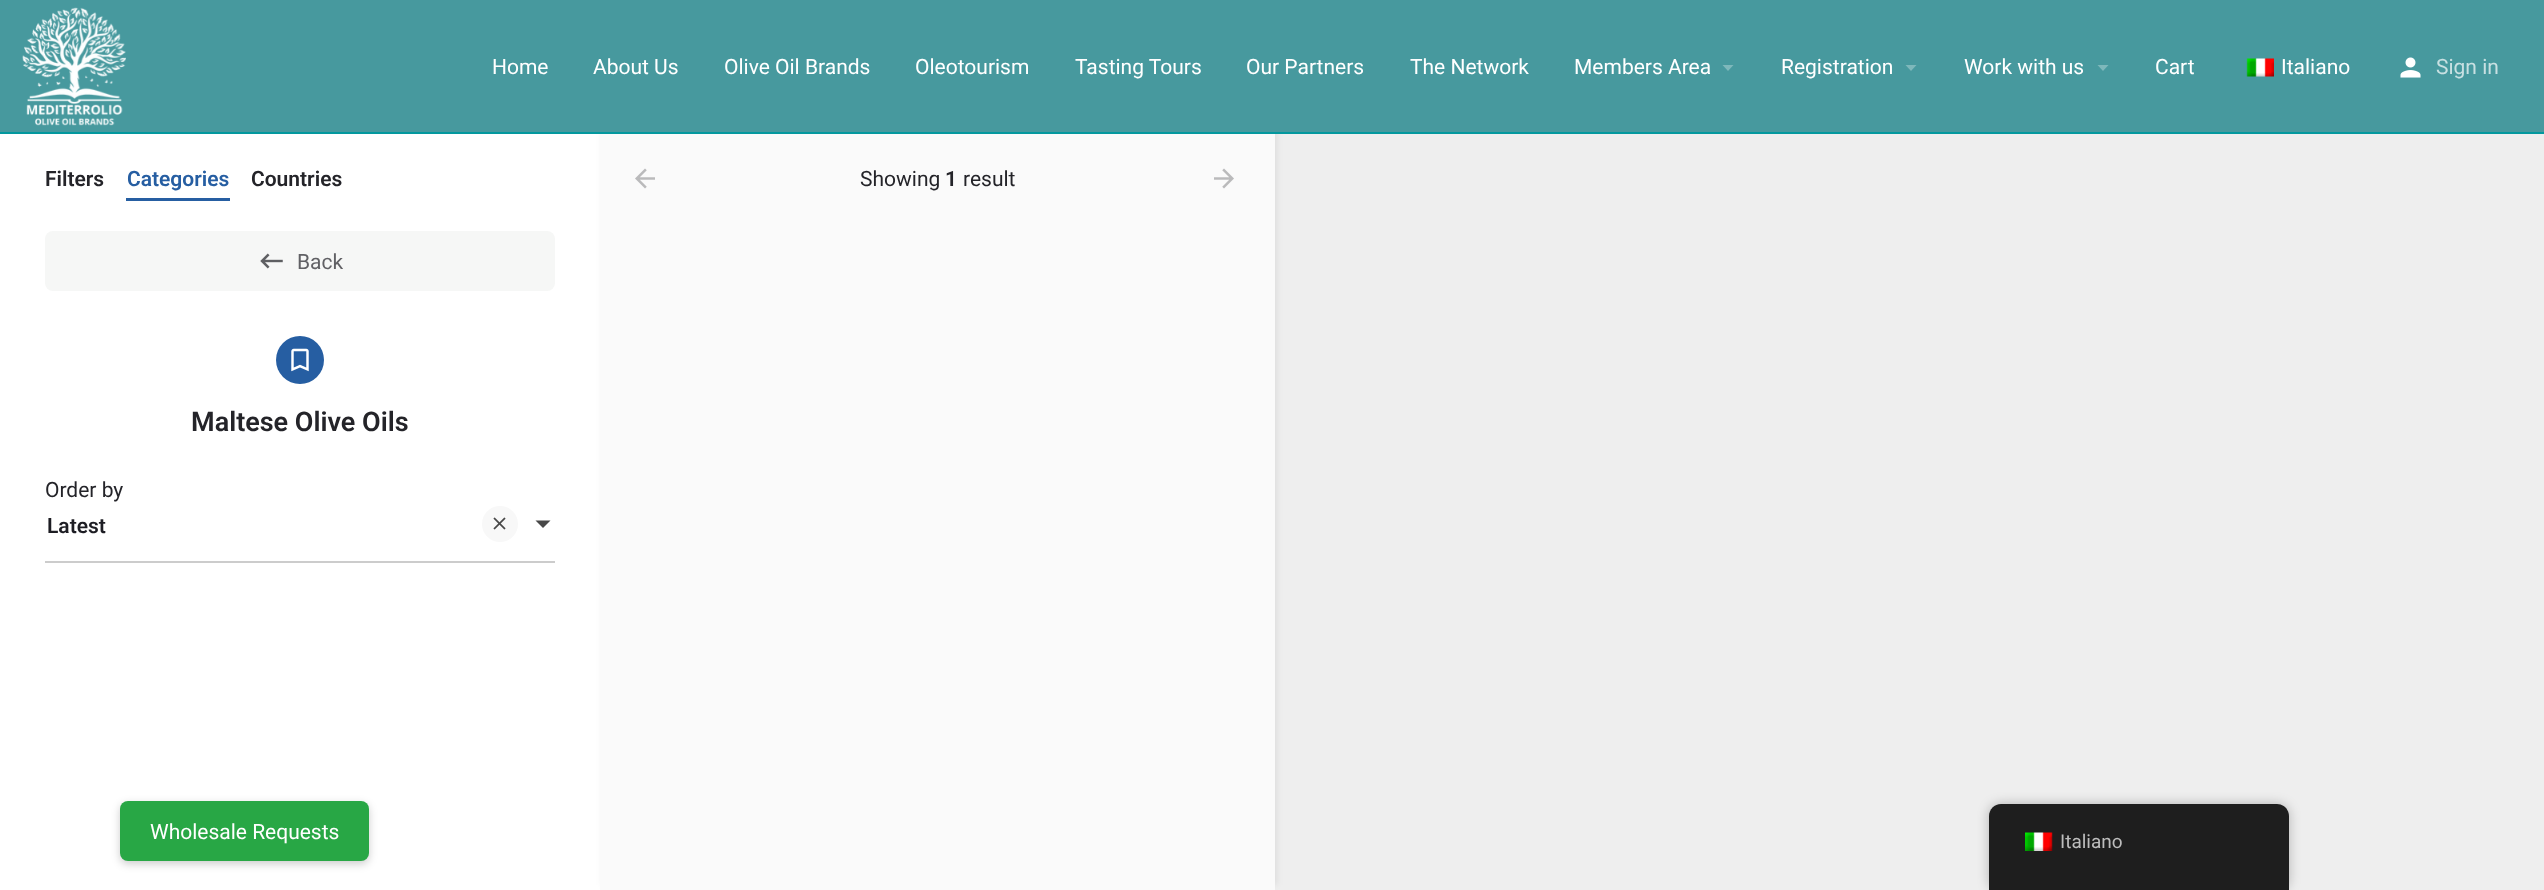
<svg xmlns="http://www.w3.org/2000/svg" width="2544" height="890">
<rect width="100%" height="100%" fill="#fff"/>
<rect x="1275" y="134" width="1269" height="756" fill="#eee"/>
<rect x="602" y="128" width="675" height="757" fill="#00000012" filter="blur(3px)"/>
<rect width="2544" height="132" fill="#47999e"/>
<rect y="132" width="2544" height="2" fill="#03989e"/>
<image x="22" y="7" width="104" height="119" href="media/1.png"/>
<text x="492" y="74" style="font-family:Roboto;font-size:21px;fill:#fff">Home</text>
<text x="593" y="74" style="font-family:Roboto;font-size:21px;fill:#fff">About Us</text>
<text x="724" y="74" style="font-family:Roboto;font-size:21px;fill:#fff">Olive Oil Brands</text>
<text x="915" y="74" style="font-family:Roboto;font-size:21px;fill:#fff">Oleotourism</text>
<text x="1075" y="74" style="font-family:Roboto;font-size:21px;fill:#fff">Tasting Tours</text>
<text x="1246" y="74" style="font-family:Roboto;font-size:21px;fill:#fff">Our Partners</text>
<text x="1410" y="74" style="font-family:Roboto;font-size:21px;fill:#fff">The Network</text>
<text x="1574" y="74" style="font-family:Roboto;font-size:21px;fill:#fff">Members Area</text>
<path d="M1722.5 65h11l-5.5 6z" fill="#7eb8bb"/>
<text x="1781" y="74" style="font-family:Roboto;font-size:21px;fill:#fff">Registration</text>
<path d="M1905.5 65h11l-5.5 6z" fill="#7eb8bb"/>
<text x="1964" y="74" style="font-family:Roboto;font-size:21px;fill:#fff">Work with us</text>
<path d="M2097.5 65h11l-5.5 6z" fill="#7eb8bb"/>
<text x="2155" y="74" style="font-family:Roboto;font-size:21px;fill:#fff">Cart</text>
<image x="2246" y="58" width="28" height="19" href="media/2.png"/>
<text x="2281" y="74" style="font-family:Roboto;font-size:21px;fill:#fff">Italiano</text>
<image x="2400" y="57" width="21" height="21" href="media/3.png"/>
<text x="2436" y="74" style="font-family:Roboto;font-size:21px;fill:#c8e0e2">Sign in</text>
<text x="45" y="186" style="font-family:Roboto;font-size:21px;font-weight:600;fill:#242429">Filters</text>
<text x="127" y="186" style="font-family:Roboto;font-size:21px;font-weight:600;fill:#265ea2">Categories</text>
<rect x="126" y="198" width="104" height="3" fill="#265ea2"/>
<text x="251" y="186" style="font-family:Roboto;font-size:21px;font-weight:600;fill:#242429">Countries</text>
<rect x="45" y="231" width="510" height="60" rx="8" fill="#f6f7f6"/>
<image x="260" y="253" width="23" height="16" href="media/4.png"/>
<text x="297" y="269" style="font-family:Roboto;font-size:21px;fill:#616165">Back</text>
<circle cx="300" cy="360" r="24" fill="#265ea2"/>
<image x="291" y="348" width="18" height="24" href="media/5.png"/>
<text x="191" y="431" style="font-family:Roboto;font-size:27px;font-weight:600;fill:#242429">Maltese Olive Oils</text>
<text x="45" y="497" style="font-family:Roboto;font-size:21px;fill:#242429">Order by</text>
<rect x="45" y="561" width="510" height="2" fill="#ccc"/>
<text x="47" y="533" style="font-family:Roboto;font-size:21px;font-weight:600;fill:#1d1d23">Latest</text>
<circle cx="500" cy="524" r="18" fill="#f8f8f8"/>
<image x="493" y="517" width="13" height="13" href="media/6.png"/>
<path d="M535.5 520.5h15l-7.5 7.5z" fill="#484848"/>
<rect x="600" y="134" width="675" height="756" fill="#fafafa"/>
<image x="635" y="168" width="20" height="21" href="media/7.png"/>
<text x="860" y="186" style="font-family:Roboto;font-size:21px;fill:#242429">Showing</text>
<text x="945" y="186" style="font-family:Roboto;font-size:21px;font-weight:600;fill:#242429">1</text>
<text x="963" y="186" style="font-family:Roboto;font-size:21px;fill:#242429">result</text>
<image x="1214" y="168" width="20" height="21" href="media/8.png"/>
<rect x="120" y="804" width="249" height="60" rx="8" fill="#00000033" filter="blur(4px)"/>
<rect x="120" y="801" width="249" height="60" rx="8" fill="#28a745"/>
<text x="150" y="839" style="font-family:Roboto;font-size:21px;fill:#fff">Wholesale Requests</text>
<rect x="1989" y="804" width="300" height="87" rx="12" fill="#00000040" filter="blur(6px)"/>
<path d="M2001 804h276c6.5 0 12 5.5 12 12v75h-300v-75c0-6.5 5.5-12 12-12z" fill="#1e1e1e"/>
<image x="2025" y="832" width="28" height="19" href="media/9.png"/>
<text x="2060" y="848" style="font-family:Roboto;font-size:19px;fill:#bdbdbd">Italiano</text>
</svg>
